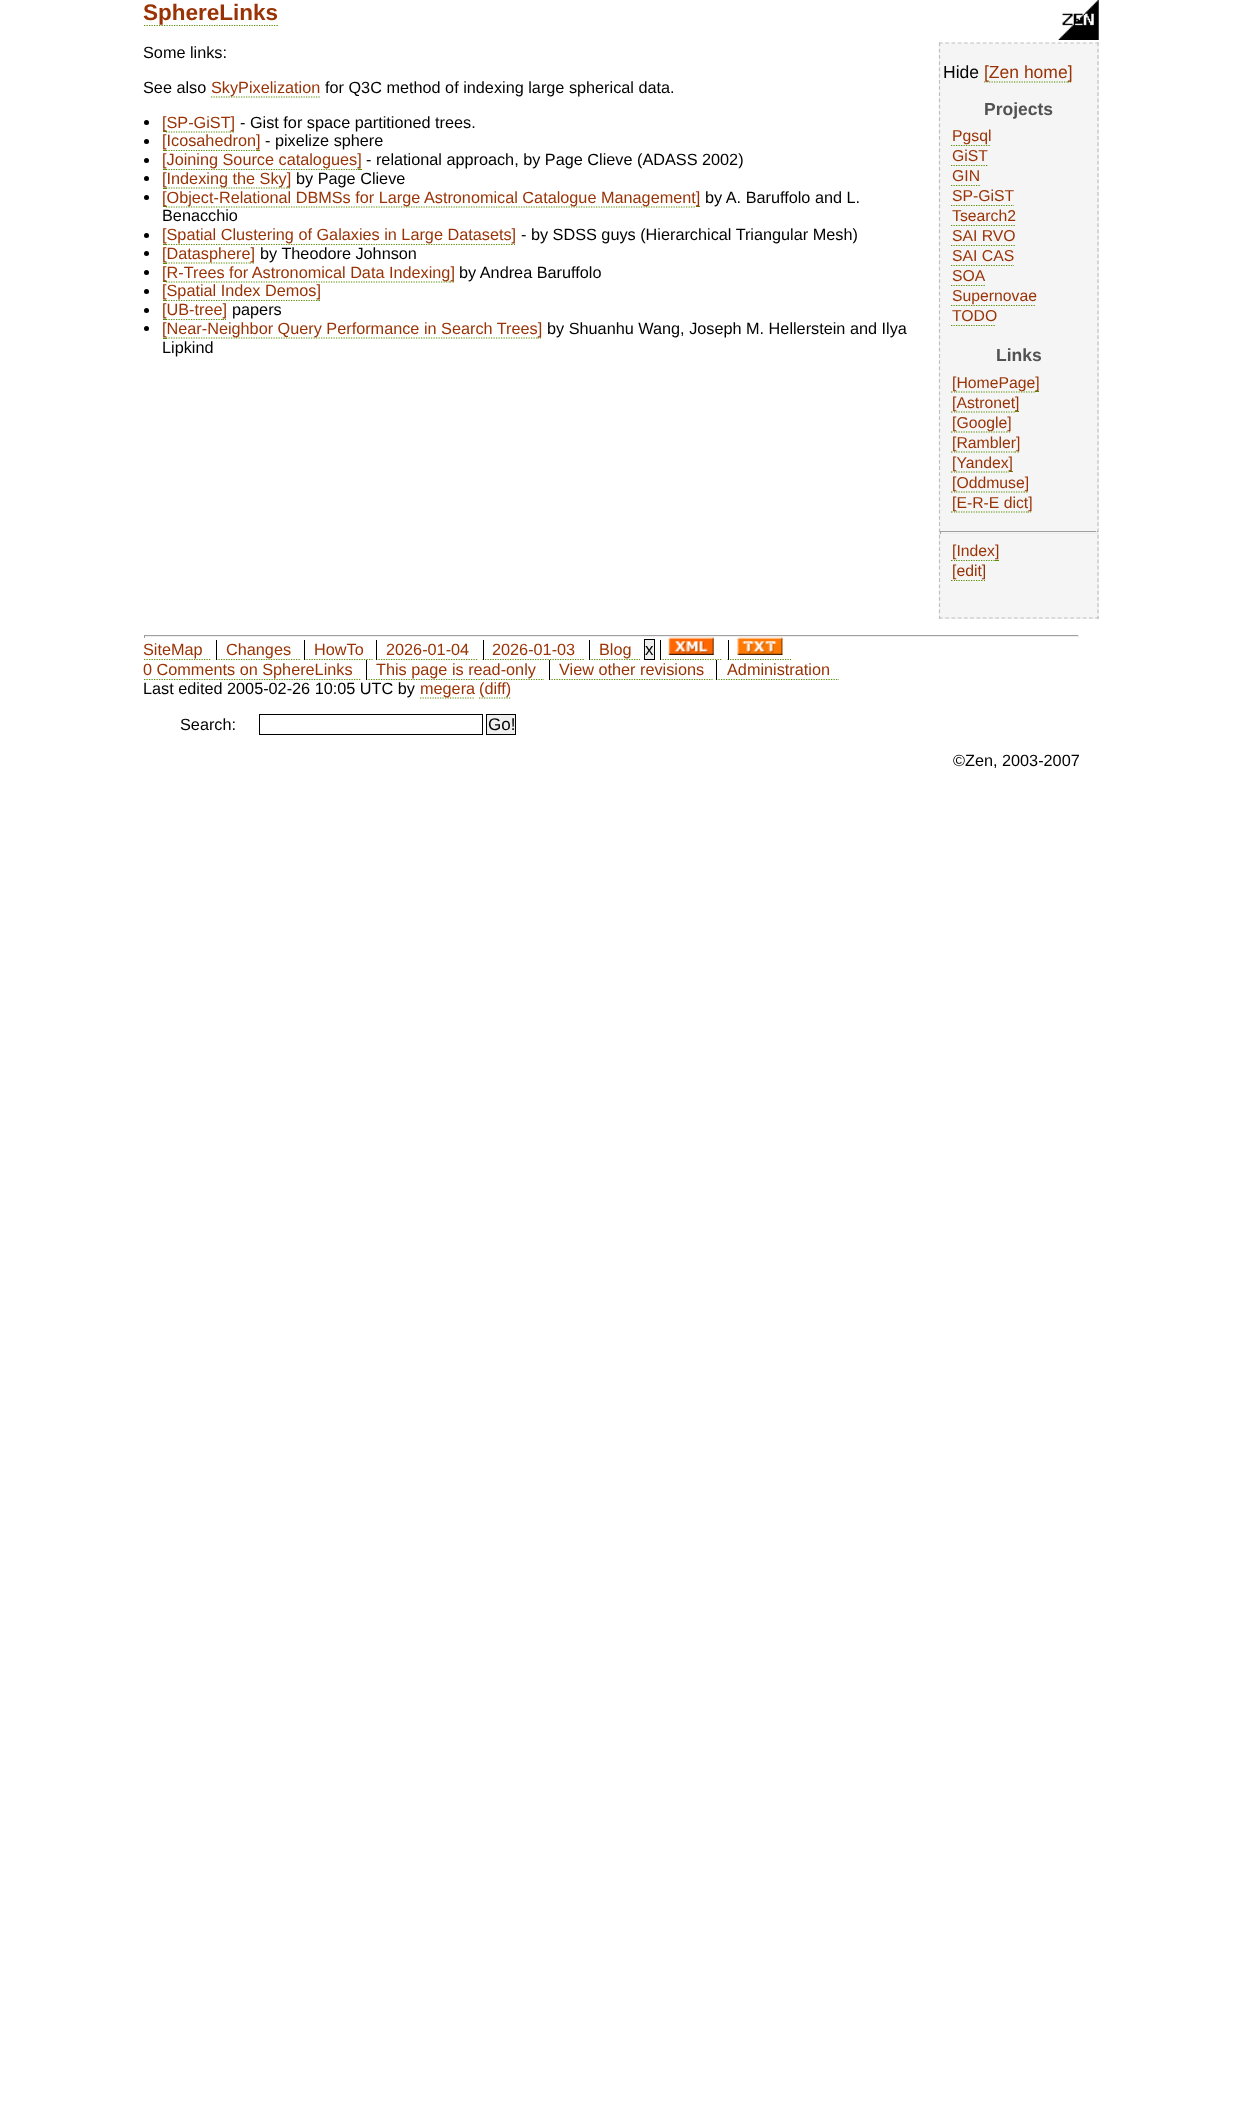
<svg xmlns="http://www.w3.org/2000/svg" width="1235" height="2112">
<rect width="100%" height="100%" fill="#fff"/>
<path d="M144 25.5h135" fill="none" stroke="#588e03" stroke-width="1.2" stroke-dasharray="1.25 1.25"/>
<text x="143" y="20" style="font-family:Liberation Sans;font-size:22.5px;font-weight:bold;fill:#993306">SphereLinks</text>
<image x="1058" y="0" width="41" height="40" href="media/1.png"/>
<text x="143" y="58" style="font-family:Liberation Sans;font-size:16.25px;fill:#000">Some links:</text>
<text x="143" y="93" style="font-family:Liberation Sans;font-size:16.25px;fill:#000">See also</text>
<path d="M211 97h109" fill="none" stroke="#588e03" stroke-width="1.2" stroke-dasharray="1.25 1.25"/>
<text x="211" y="93" style="font-family:Liberation Sans;font-size:16.25px;fill:#993306">SkyPixelization</text>
<text x="325" y="93" style="font-family:Liberation Sans;font-size:16.25px;fill:#000">for Q3C method of indexing large spherical data.</text>
<circle cx="146.5" cy="122.5" r="2.5" fill="#000"/>
<rect x="163" y="131" width="4" height="1" fill="#588e03"/>
<path d="M166 132h64" fill="none" stroke="#588e03" stroke-width="1.2" stroke-dasharray="1.25 1.25"/>
<path d="M230 132h1m1.5 0h1.5" fill="none" stroke="#588e03" stroke-width="1.2"/>
<text x="162" y="128" style="font-family:Liberation Sans;font-size:16.25px;fill:#993306">[SP-GiST]</text>
<text x="240" y="128" style="font-family:Liberation Sans;font-size:16.25px;fill:#000">- Gist for space partitioned trees.</text>
<circle cx="146.5" cy="141.5" r="2.5" fill="#000"/>
<rect x="163" y="150" width="4" height="1" fill="#588e03"/>
<path d="M166 150.5h90" fill="none" stroke="#588e03" stroke-width="1.2" stroke-dasharray="1.25 1.25"/>
<text x="162" y="146" style="font-family:Liberation Sans;font-size:16.25px;fill:#993306">[Icosahedron]</text>
<rect x="256" y="150" width="4" height="1" fill="#588e03"/>
<text x="265" y="146" style="font-family:Liberation Sans;font-size:16.25px;fill:#000">- pixelize sphere</text>
<circle cx="146.5" cy="160.5" r="2.5" fill="#000"/>
<rect x="163" y="169" width="4" height="1" fill="#588e03"/>
<path d="M166 169.5h191.5" fill="none" stroke="#588e03" stroke-width="1.2" stroke-dasharray="1.25 1.25"/>
<text x="162" y="165" style="font-family:Liberation Sans;font-size:16.25px;fill:#993306">[Joining Source catalogues]</text>
<rect x="358" y="169" width="4" height="1" fill="#588e03"/>
<text x="366" y="165" style="font-family:Liberation Sans;font-size:16.25px;fill:#000">- relational approach, by Page Clieve (ADASS 2002)</text>
<circle cx="146.5" cy="178.5" r="2.5" fill="#000"/>
<rect x="163" y="188" width="4" height="1" fill="#588e03"/>
<path d="M166 188h120" fill="none" stroke="#588e03" stroke-width="1.2" stroke-dasharray="1.25 1.25"/>
<path d="M286 188h1.5m1 0h1.5" fill="none" stroke="#588e03" stroke-width="1.2"/>
<text x="162" y="184" style="font-family:Liberation Sans;font-size:16.25px;fill:#993306">[Indexing the Sky]</text>
<text x="296" y="184" style="font-family:Liberation Sans;font-size:16.25px;fill:#000">by Page Clieve</text>
<circle cx="146.5" cy="197.5" r="2.5" fill="#000"/>
<rect x="163" y="206" width="4" height="1" fill="#588e03"/>
<path d="M166 207h530" fill="none" stroke="#588e03" stroke-width="1.2" stroke-dasharray="1.25 1.25"/>
<rect x="696" y="206" width="4" height="1" fill="#588e03"/>
<text x="162" y="203" style="font-family:Liberation Sans;font-size:16.25px;fill:#993306">[Object-Relational DBMSs for Large Astronomical Catalogue Management]</text>
<text x="705" y="203" style="font-family:Liberation Sans;font-size:16.25px;fill:#000">by A. Baruffolo and L.</text>
<text x="162" y="221" style="font-family:Liberation Sans;font-size:16.25px;fill:#000">Benacchio</text>
<circle cx="146.5" cy="235.5" r="2.5" fill="#000"/>
<rect x="163" y="244" width="4" height="1" fill="#588e03"/>
<path d="M166 244.5h345" fill="none" stroke="#588e03" stroke-width="1.2" stroke-dasharray="1.25 1.25"/>
<path d="M511 244.5h1.5m1.5 0h1" fill="none" stroke="#588e03" stroke-width="1.2"/>
<text x="162" y="240" style="font-family:Liberation Sans;font-size:16.25px;fill:#993306">[Spatial Clustering of Galaxies in Large Datasets]</text>
<text x="521" y="240" style="font-family:Liberation Sans;font-size:16.25px;fill:#000">- by SDSS guys (Hierarchical Triangular Mesh)</text>
<circle cx="146.5" cy="253.5" r="2.5" fill="#000"/>
<rect x="163" y="263" width="4" height="1" fill="#588e03"/>
<path d="M166 263h84" fill="none" stroke="#588e03" stroke-width="1.2" stroke-dasharray="1.25 1.25"/>
<path d="M250 263h1m1.5 0h1.5" fill="none" stroke="#588e03" stroke-width="1.2"/>
<text x="162" y="259" style="font-family:Liberation Sans;font-size:16.25px;fill:#993306">[Datasphere]</text>
<text x="260" y="259" style="font-family:Liberation Sans;font-size:16.25px;fill:#000">by Theodore Johnson</text>
<circle cx="146.5" cy="272.5" r="2.5" fill="#000"/>
<rect x="163" y="281" width="4" height="1" fill="#588e03"/>
<path d="M166 282h284" fill="none" stroke="#588e03" stroke-width="1.2" stroke-dasharray="1.25 1.25"/>
<path d="M450 282h1m1.5 0h1.5" fill="none" stroke="#588e03" stroke-width="1.2"/>
<text x="162" y="278" style="font-family:Liberation Sans;font-size:16.25px;fill:#993306">[R-Trees for Astronomical Data Indexing]</text>
<text x="459" y="278" style="font-family:Liberation Sans;font-size:16.25px;fill:#000">by Andrea Baruffolo</text>
<circle cx="146.5" cy="291.5" r="2.5" fill="#000"/>
<rect x="163" y="300" width="4" height="1" fill="#588e03"/>
<path d="M166 300.5h150" fill="none" stroke="#588e03" stroke-width="1.2" stroke-dasharray="1.25 1.25"/>
<path d="M316 300.5h1.5m1 0h1.5" fill="none" stroke="#588e03" stroke-width="1.2"/>
<text x="162" y="296" style="font-family:Liberation Sans;font-size:16.25px;fill:#993306">[Spatial Index Demos]</text>
<circle cx="146.5" cy="310.5" r="2.5" fill="#000"/>
<rect x="163" y="319" width="4" height="1" fill="#588e03"/>
<path d="M166 319.5h56.5" fill="none" stroke="#588e03" stroke-width="1.2" stroke-dasharray="1.25 1.25"/>
<path d="M222.5 319.5h1.5m1 0h1" fill="none" stroke="#588e03" stroke-width="1.2"/>
<text x="162" y="315" style="font-family:Liberation Sans;font-size:16.25px;fill:#993306">[UB-tree]</text>
<text x="232" y="315" style="font-family:Liberation Sans;font-size:16.25px;fill:#000">papers</text>
<circle cx="146.5" cy="328.5" r="2.5" fill="#000"/>
<rect x="163" y="338" width="4" height="1" fill="#588e03"/>
<path d="M166 338h371.5" fill="none" stroke="#588e03" stroke-width="1.2" stroke-dasharray="1.25 1.25"/>
<path d="M537.5 338h1.5m1 0h1" fill="none" stroke="#588e03" stroke-width="1.2"/>
<text x="162" y="334" style="font-family:Liberation Sans;font-size:16.25px;fill:#993306">[Near-Neighbor Query Performance in Search Trees]</text>
<text x="547" y="334" style="font-family:Liberation Sans;font-size:16.25px;fill:#000">by Shuanhu Wang, Joseph M. Hellerstein and Ilya</text>
<text x="162" y="353" style="font-family:Liberation Sans;font-size:16.25px;fill:#000">Lipkind</text>
<rect x="939" y="43" width="160" height="576" fill="#f5f5f5"/>
<path d="M939 43h160" fill="none" stroke="#c0c0c0" stroke-width="1.2" stroke-dasharray="3.75 2.5"/>
<path d="M1098 42.5v576.5" fill="none" stroke="#c0c0c0" stroke-width="1.2" stroke-dasharray="3.75 2.48"/>
<path d="M939 618h160" fill="none" stroke="#c0c0c0" stroke-width="1.2" stroke-dasharray="3.75 2.5"/>
<path d="M939.5 42.5v576.5" fill="none" stroke="#c0c0c0" stroke-width="1.2" stroke-dasharray="3.75 2.48"/>
<text x="943" y="78" style="font-family:Liberation Sans;font-size:17.5px;fill:#000">Hide</text>
<path d="M984 82h1m1.5 0h1" fill="none" stroke="#588e03" stroke-width="1.2"/>
<path d="M989 82h78.5" fill="none" stroke="#588e03" stroke-width="1.2" stroke-dasharray="1.25 1.25"/>
<path d="M1067.5 82h1.5m1 0h1" fill="none" stroke="#588e03" stroke-width="1.2"/>
<text x="984" y="78" style="font-family:Liberation Sans;font-size:17.5px;fill:#993306">[Zen home]</text>
<text x="984" y="115" style="font-family:Liberation Sans;font-size:17.5px;font-weight:bold;fill:#525252">Projects</text>
<path d="M951 145.5h40" fill="none" stroke="#588e03" stroke-width="1.2" stroke-dasharray="1.25 1.25"/>
<text x="952" y="141" style="font-family:Liberation Sans;font-size:15.75px;fill:#993306">Pgsql</text>
<text x="952" y="161" style="font-family:Liberation Sans;font-size:15.75px;fill:#993306">GiST</text>
<path d="M951 165.5h36.5" fill="none" stroke="#588e03" stroke-width="1.2" stroke-dasharray="1.25 1.25"/>
<text x="952" y="181" style="font-family:Liberation Sans;font-size:15.75px;fill:#993306">GIN</text>
<path d="M951 185.5h29" fill="none" stroke="#588e03" stroke-width="1.2" stroke-dasharray="1.25 1.25"/>
<text x="952" y="201" style="font-family:Liberation Sans;font-size:15.75px;fill:#993306">SP-GiST</text>
<path d="M951 205.5h63" fill="none" stroke="#588e03" stroke-width="1.2" stroke-dasharray="1.25 1.25"/>
<text x="952" y="221" style="font-family:Liberation Sans;font-size:15.75px;fill:#993306">Tsearch2</text>
<path d="M951 225.5h64" fill="none" stroke="#588e03" stroke-width="1.2" stroke-dasharray="1.25 1.25"/>
<text x="952" y="241" style="font-family:Liberation Sans;font-size:15.75px;fill:#993306">SAI RVO</text>
<path d="M951 245.5h64" fill="none" stroke="#588e03" stroke-width="1.2" stroke-dasharray="1.25 1.25"/>
<text x="952" y="261" style="font-family:Liberation Sans;font-size:15.75px;fill:#993306">SAI CAS</text>
<path d="M951 265.5h63" fill="none" stroke="#588e03" stroke-width="1.2" stroke-dasharray="1.25 1.25"/>
<text x="952" y="281" style="font-family:Liberation Sans;font-size:15.75px;fill:#993306">SOA</text>
<path d="M951 285.5h34" fill="none" stroke="#588e03" stroke-width="1.2" stroke-dasharray="1.25 1.25"/>
<path d="M951 305.5h85" fill="none" stroke="#588e03" stroke-width="1.2" stroke-dasharray="1.25 1.25"/>
<text x="952" y="301" style="font-family:Liberation Sans;font-size:15.75px;fill:#993306">Supernovae</text>
<text x="952" y="321" style="font-family:Liberation Sans;font-size:15.75px;fill:#993306">TODO</text>
<path d="M951 325.5h45" fill="none" stroke="#588e03" stroke-width="1.2" stroke-dasharray="1.25 1.25"/>
<text x="996" y="361" style="font-family:Liberation Sans;font-size:17.5px;font-weight:bold;fill:#525252">Links</text>
<path d="M951 392h1.5m1.5 0h1" fill="none" stroke="#588e03" stroke-width="1.2"/>
<path d="M956 392h79" fill="none" stroke="#588e03" stroke-width="1.2" stroke-dasharray="1.25 1.25"/>
<rect x="1035" y="391" width="4" height="1" fill="#588e03"/>
<text x="952" y="388" style="font-family:Liberation Sans;font-size:15.75px;fill:#993306">[HomePage]</text>
<path d="M951 412h1.5m1.5 0h1" fill="none" stroke="#588e03" stroke-width="1.2"/>
<path d="M956 412h59" fill="none" stroke="#588e03" stroke-width="1.2" stroke-dasharray="1.25 1.25"/>
<rect x="1015" y="411" width="4" height="1" fill="#588e03"/>
<text x="952" y="408" style="font-family:Liberation Sans;font-size:15.75px;fill:#993306">[Astronet]</text>
<path d="M951 432h1.5m1.5 0h1" fill="none" stroke="#588e03" stroke-width="1.2"/>
<path d="M956 432h50" fill="none" stroke="#588e03" stroke-width="1.2" stroke-dasharray="1.25 1.25"/>
<path d="M1006 432h1.5m1.5 0h1" fill="none" stroke="#588e03" stroke-width="1.2"/>
<text x="952" y="428" style="font-family:Liberation Sans;font-size:15.75px;fill:#993306">[Google]</text>
<path d="M951 452h1.5m1.5 0h1" fill="none" stroke="#588e03" stroke-width="1.2"/>
<path d="M956 452h59" fill="none" stroke="#588e03" stroke-width="1.2" stroke-dasharray="1.25 1.25"/>
<path d="M1015 452h1m1.5 0h1.5" fill="none" stroke="#588e03" stroke-width="1.2"/>
<text x="952" y="448" style="font-family:Liberation Sans;font-size:15.75px;fill:#993306">[Rambler]</text>
<path d="M951 472h1.5m1.5 0h1" fill="none" stroke="#588e03" stroke-width="1.2"/>
<path d="M956 472h53" fill="none" stroke="#588e03" stroke-width="1.2" stroke-dasharray="1.25 1.25"/>
<rect x="1009" y="471" width="4" height="1" fill="#588e03"/>
<text x="952" y="468" style="font-family:Liberation Sans;font-size:15.75px;fill:#993306">[Yandex]</text>
<path d="M951 492h1.5m1.5 0h1" fill="none" stroke="#588e03" stroke-width="1.2"/>
<path d="M956 492h68" fill="none" stroke="#588e03" stroke-width="1.2" stroke-dasharray="1.25 1.25"/>
<path d="M1024 492h1m1 0h1.5" fill="none" stroke="#588e03" stroke-width="1.2"/>
<text x="952" y="488" style="font-family:Liberation Sans;font-size:15.75px;fill:#993306">[Oddmuse]</text>
<path d="M951 512h1.5m1.5 0h1" fill="none" stroke="#588e03" stroke-width="1.2"/>
<path d="M956 512h71.5" fill="none" stroke="#588e03" stroke-width="1.2" stroke-dasharray="1.25 1.25"/>
<path d="M1027.5 512h1.5m1 0h1" fill="none" stroke="#588e03" stroke-width="1.2"/>
<text x="952" y="508" style="font-family:Liberation Sans;font-size:15.75px;fill:#993306">[E-R-E dict]</text>
<rect x="940" y="531" width="158" height="1" fill="#9f9f9f"/>
<rect x="1096" y="531" width="1" height="3" fill="#eee"/>
<rect x="940" y="533" width="158" height="1" fill="#eee"/>
<rect x="940" y="531" width="1" height="3" fill="#9f9f9f"/>
<path d="M951 560.5h1.5m1.5 0h1" fill="none" stroke="#588e03" stroke-width="1.2"/>
<path d="M956 560.5h39" fill="none" stroke="#588e03" stroke-width="1.2" stroke-dasharray="1.25 1.25"/>
<text x="952" y="556" style="font-family:Liberation Sans;font-size:15.75px;fill:#993306">[Index]</text>
<rect x="995" y="560" width="4" height="1" fill="#588e03"/>
<path d="M951 580.5h1.5m1.5 0h1" fill="none" stroke="#588e03" stroke-width="1.2"/>
<path d="M956 580.5h25" fill="none" stroke="#588e03" stroke-width="1.2" stroke-dasharray="1.25 1.25"/>
<path d="M981 580.5h1.5m1.5 0h1" fill="none" stroke="#588e03" stroke-width="1.2"/>
<text x="952" y="576" style="font-family:Liberation Sans;font-size:15.75px;fill:#993306">[edit]</text>
<rect x="144" y="635" width="935" height="1" fill="#9f9f9f"/>
<rect x="1078" y="635" width="1" height="3" fill="#eee"/>
<rect x="144" y="636" width="935" height="1" fill="#eee"/>
<rect x="144" y="635" width="1" height="3" fill="#9f9f9f"/>
<path d="M144 659.5h67" fill="none" stroke="#588e03" stroke-width="1.2" stroke-dasharray="1.25 1.25"/>
<text x="143" y="655" style="font-family:Liberation Sans;font-size:16.25px;fill:#993306">SiteMap</text>
<path d="M216 659.5h84" fill="none" stroke="#588e03" stroke-width="1.2" stroke-dasharray="1.25 1.25"/>
<text x="226" y="655" style="font-family:Liberation Sans;font-size:16.25px;fill:#993306">Changes</text>
<rect x="216" y="640" width="1" height="20" fill="#000"/>
<text x="314" y="655" style="font-family:Liberation Sans;font-size:16.25px;fill:#993306">HowTo</text>
<path d="M304 659.5h68.5" fill="none" stroke="#588e03" stroke-width="1.2" stroke-dasharray="1.25 1.25"/>
<rect x="304" y="640" width="1" height="20" fill="#000"/>
<text x="386" y="655" style="font-family:Liberation Sans;font-size:16.25px;fill:#993306">2026-01-04</text>
<path d="M376 659.5h101.5" fill="none" stroke="#588e03" stroke-width="1.2" stroke-dasharray="1.25 1.25"/>
<rect x="376" y="640" width="1" height="20" fill="#000"/>
<text x="492" y="655" style="font-family:Liberation Sans;font-size:16.25px;fill:#993306">2026-01-03</text>
<path d="M482.5 659.5h101.5" fill="none" stroke="#588e03" stroke-width="1.2" stroke-dasharray="1.25 1.25"/>
<rect x="483" y="640" width="1" height="20" fill="#000"/>
<path d="M589 659.5h51" fill="none" stroke="#588e03" stroke-width="1.2" stroke-dasharray="1.25 1.25"/>
<text x="599" y="655" style="font-family:Liberation Sans;font-size:16.25px;fill:#993306">Blog</text>
<rect x="589" y="640" width="1" height="20" fill="#000"/>
<rect x="644.5" y="639.5" width="10" height="20" fill="#efefef" stroke="#000"/>
<text x="645" y="655" style="font-family:Liberation Sans;font-size:17px;fill:#000">x</text>
<path d="M660 659.5h62.5" fill="none" stroke="#588e03" stroke-width="1.2" stroke-dasharray="1.25 1.25"/>
<rect x="660" y="640" width="1" height="20" fill="#000"/>
<image x="668" y="637" width="46" height="18" href="media/2.png"/>
<path d="M727.5 659.5h63.5" fill="none" stroke="#588e03" stroke-width="1.2" stroke-dasharray="1.25 1.25"/>
<rect x="728" y="640" width="1" height="20" fill="#000"/>
<image x="737" y="637" width="46" height="18" href="media/3.png"/>
<path d="M144 679.5h217" fill="none" stroke="#588e03" stroke-width="1.2" stroke-dasharray="1.25 1.25"/>
<text x="143" y="675" style="font-family:Liberation Sans;font-size:16.25px;fill:#993306">0 Comments on SphereLinks</text>
<path d="M366 679.5h178" fill="none" stroke="#588e03" stroke-width="1.2" stroke-dasharray="1.25 1.25"/>
<text x="376" y="675" style="font-family:Liberation Sans;font-size:16.25px;fill:#993306">This page is read-only</text>
<rect x="366" y="660" width="1" height="20" fill="#000"/>
<text x="559" y="675" style="font-family:Liberation Sans;font-size:16.25px;fill:#993306">View other revisions</text>
<path d="M549 679.5h163.5" fill="none" stroke="#588e03" stroke-width="1.2" stroke-dasharray="1.25 1.25"/>
<rect x="549" y="660" width="1" height="20" fill="#000"/>
<text x="727" y="675" style="font-family:Liberation Sans;font-size:16.25px;fill:#993306">Administration</text>
<path d="M716 679.5h123" fill="none" stroke="#588e03" stroke-width="1.2" stroke-dasharray="1.25 1.25"/>
<rect x="716" y="660" width="1" height="20" fill="#000"/>
<text x="143" y="694" style="font-family:Liberation Sans;font-size:16.25px;fill:#000">Last edited 2005-02-26 10:05 UTC by</text>
<path d="M420 698h55" fill="none" stroke="#588e03" stroke-width="1.2" stroke-dasharray="1.25 1.25"/>
<text x="420" y="694" style="font-family:Liberation Sans;font-size:16.25px;fill:#993306">megera</text>
<path d="M479 698h32" fill="none" stroke="#588e03" stroke-width="1.2" stroke-dasharray="1.25 1.25"/>
<text x="479" y="694" style="font-family:Liberation Sans;font-size:16.25px;fill:#993306">(diff)</text>
<text x="180" y="730" style="font-family:Liberation Sans;font-size:16.25px;fill:#000">Search:</text>
<rect x="259.5" y="714.5" width="223" height="20" fill="none" stroke="#000"/>
<rect x="486.5" y="714.5" width="29" height="20" fill="#efefef" stroke="#000"/>
<text x="488" y="730" style="font-family:Liberation Sans;font-size:17px;fill:#000">Go!</text>
<text x="953" y="766" style="font-family:Liberation Sans;font-size:16.25px;fill:#000">©Zen, 2003-2007</text>
</svg>
